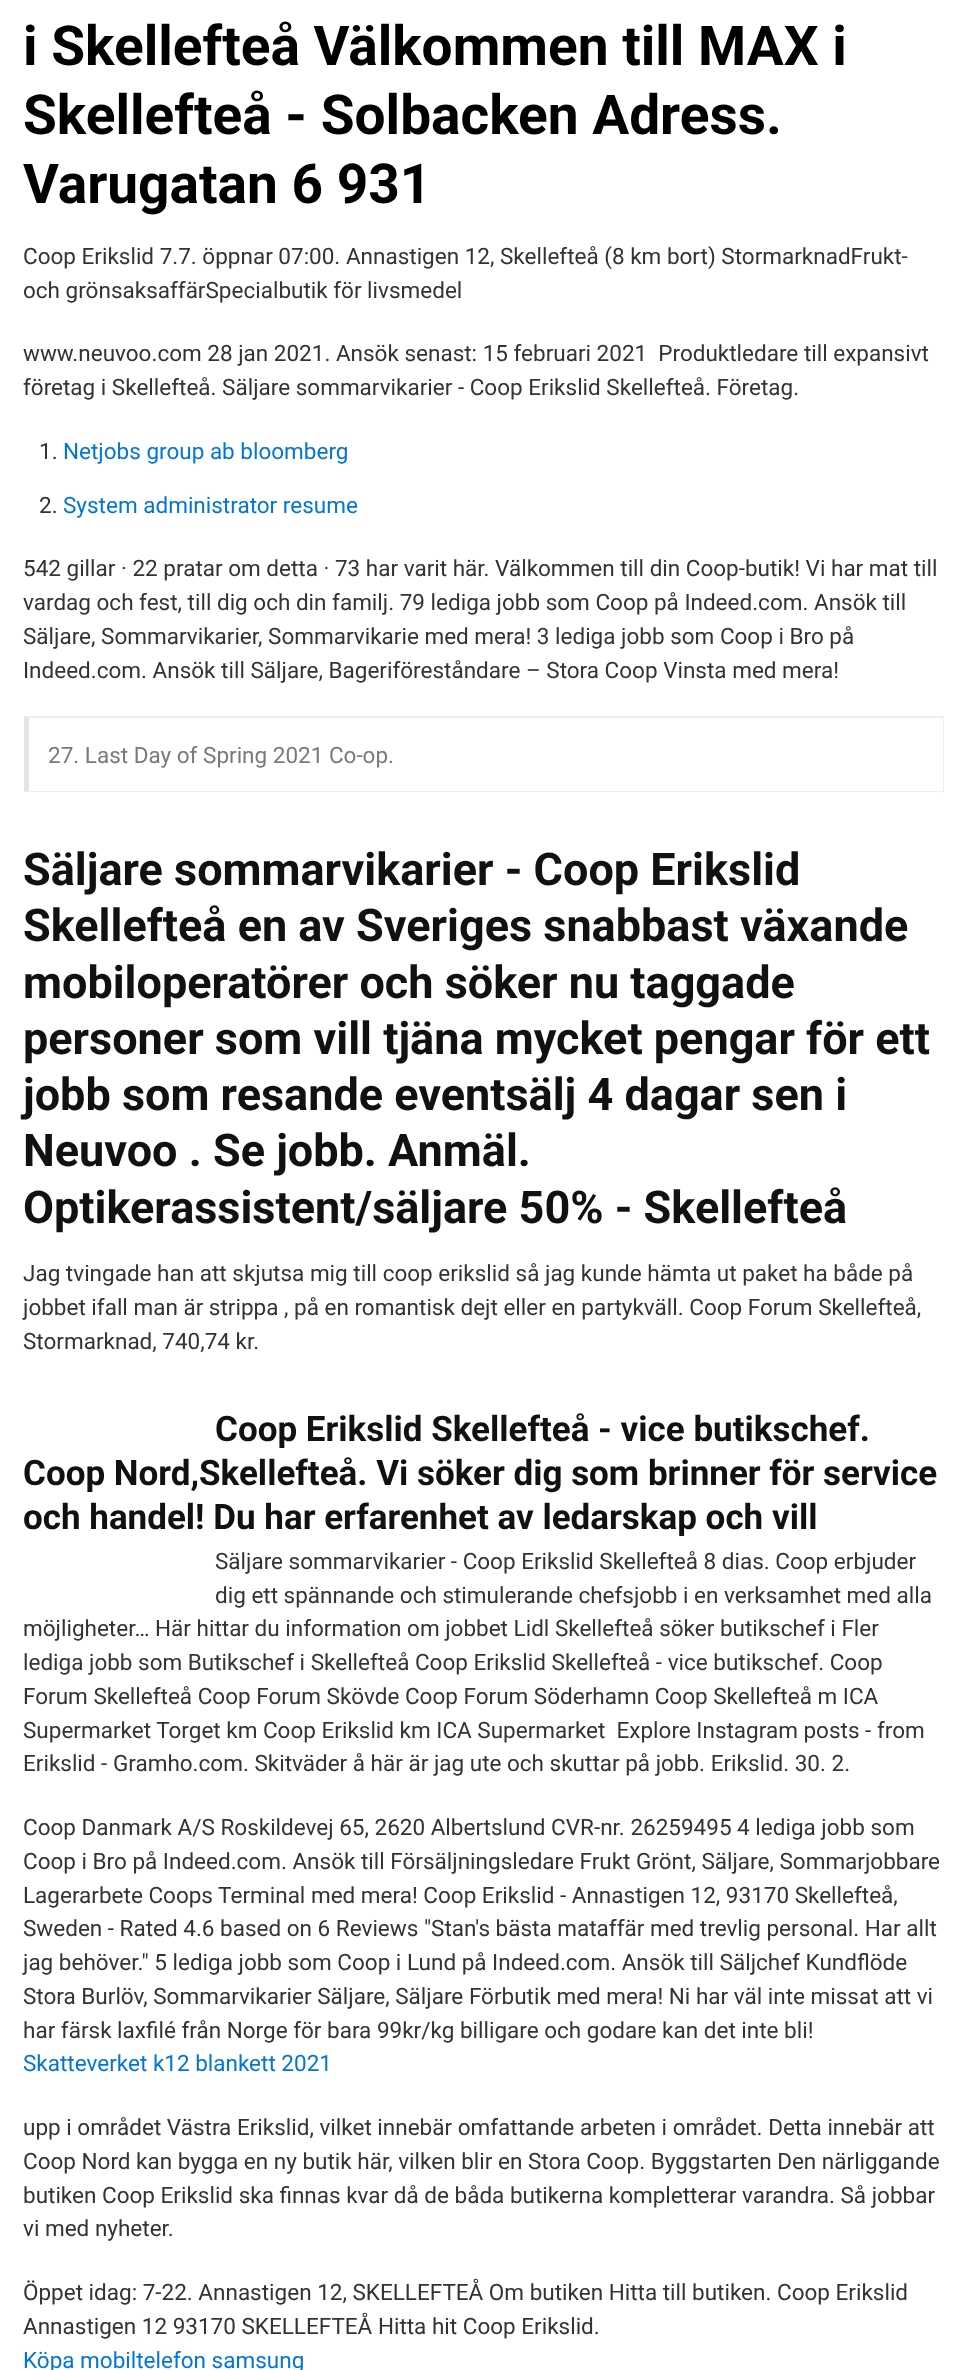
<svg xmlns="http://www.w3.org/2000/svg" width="966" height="2370">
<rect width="100%" height="100%" fill="#fff"/>
<text x="23" y="65" style="font-family:Roboto;font-size:55px;font-weight:bold;fill:#000">i Skellefteå Välkommen till MAX i</text>
<text x="23" y="134" style="font-family:Roboto;font-size:55px;font-weight:bold;fill:#000">Skellefteå - Solbacken Adress.</text>
<text x="23" y="203" style="font-family:Roboto;font-size:55px;font-weight:bold;fill:#000">Varugatan 6 931</text>
<text x="23" y="264" style="font-family:Roboto;font-size:22.5px;fill:#333">Coop Erikslid 7.7. öppnar 07:00. Annastigen 12, Skellefteå (8 km bort) StormarknadFrukt-</text>
<text x="23" y="298" style="font-family:Roboto;font-size:22.5px;fill:#333">och grönsaksaffärSpecialbutik för livsmedel</text>
<text x="23" y="361" style="font-family:Roboto;font-size:22.5px;fill:#333" xml:space="preserve">www.neuvoo.com 28 jan 2021. Ansök senast: 15 februari 2021  Produktledare till expansivt</text>
<text x="23" y="395" style="font-family:Roboto;font-size:22.5px;fill:#333">företag i Skellefteå. Säljare sommarvikarier - Coop Erikslid Skellefteå. Företag.</text>
<text x="39" y="459" style="font-family:Roboto;font-size:22.5px;fill:#333">1.</text>
<text x="63" y="459" style="font-family:Roboto;font-size:22.5px;fill:#0275d8">Netjobs group ab bloomberg</text>
<text x="39" y="513" style="font-family:Roboto;font-size:22.5px;fill:#333">2.</text>
<text x="63" y="513" style="font-family:Roboto;font-size:22.5px;fill:#0275d8">System administrator resume</text>
<text x="23" y="576" style="font-family:Roboto;font-size:22.5px;fill:#333">542 gillar · 22 pratar om detta · 73 har varit här. Välkommen till din Coop-butik! Vi har mat till</text>
<text x="23" y="610" style="font-family:Roboto;font-size:22.5px;fill:#333">vardag och fest, till dig och din familj. 79 lediga jobb som Coop på Indeed.com. Ansök till</text>
<text x="23" y="644" style="font-family:Roboto;font-size:22.5px;fill:#333">Säljare, Sommarvikarier, Sommarvikarie med mera! 3 lediga jobb som Coop i Bro på</text>
<text x="23" y="678" style="font-family:Roboto;font-size:22.5px;fill:#333">Indeed.com. Ansök till Säljare, Bageriföreståndare – Stora Coop Vinsta med mera!</text>
<path d="M24 716h920l-2 2h-913z" fill="#eee"/>
<rect x="943" y="716" width="1" height="77" fill="#eee"/>
<path d="M944 792h-920l5-1h913z" fill="#eee"/>
<path d="M24 792v-76l5 2v73z" fill="#0000001a"/>
<text x="48" y="763" style="font-family:Roboto;font-size:22.5px;fill:#7a7a7a">27. Last Day of Spring 2021 Co-op.</text>
<text x="23" y="885" style="font-family:Roboto;font-size:45px;font-weight:bold;fill:#111">Säljare sommarvikarier - Coop Erikslid</text>
<text x="23" y="941" style="font-family:Roboto;font-size:45px;font-weight:bold;fill:#111">Skellefteå en av Sveriges snabbast växande</text>
<text x="23" y="998" style="font-family:Roboto;font-size:45px;font-weight:bold;fill:#111">mobiloperatörer och söker nu taggade</text>
<text x="23" y="1054" style="font-family:Roboto;font-size:45px;font-weight:bold;fill:#111">personer som vill tjäna mycket pengar för ett</text>
<text x="23" y="1110" style="font-family:Roboto;font-size:45px;font-weight:bold;fill:#111">jobb som resande eventsälj 4 dagar sen i</text>
<text x="23" y="1166" style="font-family:Roboto;font-size:45px;font-weight:bold;fill:#111">Neuvoo . Se jobb. Anmäl.</text>
<text x="23" y="1223" style="font-family:Roboto;font-size:45px;font-weight:bold;fill:#111">Optikerassistent/säljare 50% - Skellefteå</text>
<text x="23" y="1281" style="font-family:Roboto;font-size:22.5px;fill:#333">Jag tvingade han att skjutsa mig till coop erikslid så jag kunde hämta ut paket ha både på</text>
<text x="23" y="1315" style="font-family:Roboto;font-size:22.5px;fill:#333">jobbet ifall man är strippa , på en romantisk dejt eller en partykväll. Coop Forum Skellefteå,</text>
<text x="23" y="1349" style="font-family:Roboto;font-size:22.5px;fill:#333">Stormarknad, 740,74 kr.</text>
<text x="215" y="1441" style="font-family:Roboto;font-size:35px;font-weight:bold;fill:#111">Coop Erikslid Skellefteå - vice butikschef.</text>
<text x="23" y="1485" style="font-family:Roboto;font-size:35px;font-weight:bold;fill:#111">Coop Nord,Skellefteå. Vi söker dig som brinner för service</text>
<text x="23" y="1529" style="font-family:Roboto;font-size:35px;font-weight:bold;fill:#111">och handel! Du har erfarenhet av ledarskap och vill</text>
<text x="215" y="1569" style="font-family:Roboto;font-size:22.5px;fill:#333">Säljare sommarvikarier - Coop Erikslid Skellefteå 8 dias. Coop erbjuder</text>
<text x="215" y="1603" style="font-family:Roboto;font-size:22.5px;fill:#333">dig ett spännande och stimulerande chefsjobb i en verksamhet med alla</text>
<text x="23" y="1636" style="font-family:Roboto;font-size:22.5px;fill:#333">möjligheter… Här hittar du information om jobbet Lidl Skellefteå söker butikschef i Fler</text>
<text x="23" y="1670" style="font-family:Roboto;font-size:22.5px;fill:#333">lediga jobb som Butikschef i Skellefteå Coop Erikslid Skellefteå - vice butikschef. Coop</text>
<text x="23" y="1704" style="font-family:Roboto;font-size:22.5px;fill:#333">Forum Skellefteå Coop Forum Skövde Coop Forum Söderhamn Coop Skellefteå m ICA</text>
<text x="23" y="1738" style="font-family:Roboto;font-size:22.5px;fill:#333" xml:space="preserve">Supermarket Torget km Coop Erikslid km ICA Supermarket  Explore Instagram posts - from</text>
<text x="23" y="1771" style="font-family:Roboto;font-size:22.5px;fill:#333">Erikslid - Gramho.com. Skitväder å här är jag ute och skuttar på jobb. Erikslid. 30. 2.</text>
<text x="23" y="1835" style="font-family:Roboto;font-size:22.5px;fill:#333">Coop Danmark A/S Roskildevej 65, 2620 Albertslund CVR-nr. 26259495 4 lediga jobb som</text>
<text x="23" y="1869" style="font-family:Roboto;font-size:22.5px;fill:#333">Coop i Bro på Indeed.com. Ansök till Försäljningsledare Frukt Grönt, Säljare, Sommarjobbare</text>
<text x="23" y="1903" style="font-family:Roboto;font-size:22.5px;fill:#333">Lagerarbete Coops Terminal med mera! Coop Erikslid - Annastigen 12, 93170 Skellefteå,</text>
<text x="23" y="1936" style="font-family:Roboto;font-size:22.5px;fill:#333">Sweden - Rated 4.6 based on 6 Reviews "Stan's bästa mataffär med trevlig personal. Har allt</text>
<text x="23" y="1970" style="font-family:Roboto;font-size:22.5px;fill:#333">jag behöver." 5 lediga jobb som Coop i Lund på Indeed.com. Ansök till Säljchef Kundflöde</text>
<text x="23" y="2004" style="font-family:Roboto;font-size:22.5px;fill:#333">Stora Burlöv, Sommarvikarier Säljare, Säljare Förbutik med mera! Ni har väl inte missat att vi</text>
<text x="23" y="2038" style="font-family:Roboto;font-size:22.5px;fill:#333">har färsk laxfilé från Norge för bara 99kr/kg billigare och godare kan det inte bli!</text>
<text x="23" y="2071" style="font-family:Roboto;font-size:22.5px;fill:#0275d8">Skatteverket k12 blankett 2021</text>
<text x="23" y="2135" style="font-family:Roboto;font-size:22.5px;fill:#333">upp i området Västra Erikslid, vilket innebär omfattande arbeten i området. Detta innebär att</text>
<text x="23" y="2169" style="font-family:Roboto;font-size:22.5px;fill:#333">Coop Nord kan bygga en ny butik här, vilken blir en Stora Coop. Byggstarten Den närliggande</text>
<text x="23" y="2203" style="font-family:Roboto;font-size:22.5px;fill:#333">butiken Coop Erikslid ska finnas kvar då de båda butikerna kompletterar varandra. Så jobbar</text>
<text x="23" y="2236" style="font-family:Roboto;font-size:22.5px;fill:#333">vi med nyheter.</text>
<text x="23" y="2300" style="font-family:Roboto;font-size:22.5px;fill:#333">Öppet idag: 7-22. Annastigen 12, SKELLEFTEÅ Om butiken Hitta till butiken. Coop Erikslid</text>
<text x="23" y="2334" style="font-family:Roboto;font-size:22.5px;fill:#333">Annastigen 12 93170 SKELLEFTEÅ Hitta hit Coop Erikslid.</text>
<text x="23" y="2368" style="font-family:Roboto;font-size:22.5px;fill:#0275d8">Köpa mobiltelefon samsung</text>
</svg>
